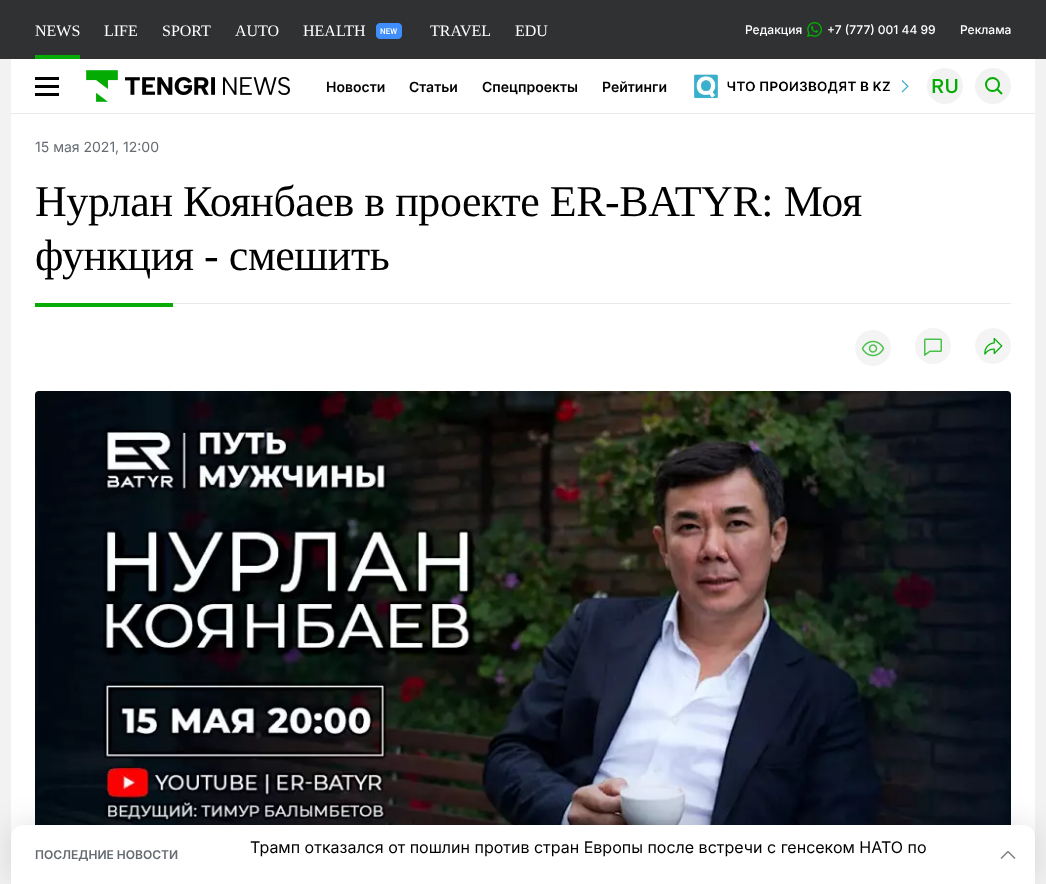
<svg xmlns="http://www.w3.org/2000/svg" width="1046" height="884">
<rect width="100%" height="100%" fill="#f1f2f1"/>
<rect width="1046" height="59" fill="#303133"/>
<rect x="35" y="55" width="45" height="4" fill="#03ab02"/>
<text x="35" y="36" style="font-family:Liberation Serif;font-size:16px;fill:#fff">NEWS</text>
<text x="104" y="36" style="font-family:Liberation Serif;font-size:16px;fill:#fff">LIFE</text>
<text x="162" y="36" style="font-family:Liberation Serif;font-size:16px;fill:#fff">SPORT</text>
<text x="235" y="36" style="font-family:Liberation Serif;font-size:16px;fill:#fff">AUTO</text>
<text x="303" y="36" style="font-family:Liberation Serif;font-size:16px;fill:#fff">HEALTH</text>
<image x="376" y="23" width="26" height="16" href="media/1.png"/>
<text x="430" y="36" style="font-family:Liberation Serif;font-size:16px;fill:#fff">TRAVEL</text>
<text x="515" y="36" style="font-family:Liberation Serif;font-size:16px;fill:#fff">EDU</text>
<text x="745" y="34" style="font-family:Inter;font-size:12px;font-weight:500;fill:#fff">Редакция</text>
<image x="807" y="22" width="15" height="15" href="media/2.png"/>
<text x="827" y="34" style="font-family:Inter;font-size:12px;font-weight:500;fill:#fff">+7 (777) 001 44 99</text>
<text x="960" y="34" style="font-family:Inter;font-size:12px;font-weight:500;fill:#fff">Реклама</text>
<rect x="11" y="59" width="1024" height="54" fill="#fff"/>
<rect x="11" y="113" width="1024" height="1" fill="#eaeaec"/>
<rect x="35" y="77" width="24" height="3" fill="#000"/>
<rect x="35" y="85" width="24" height="3" fill="#000"/>
<rect x="35" y="93" width="24" height="3" fill="#000"/>
<image x="86" y="70" width="204" height="32" href="media/3.png"/>
<text x="326" y="92" style="font-family:Inter;font-size:14px;font-weight:600;fill:#000">Новости</text>
<text x="409" y="92" style="font-family:Inter;font-size:14px;font-weight:600;fill:#000">Статьи</text>
<text x="482" y="92" style="font-family:Inter;font-size:14px;font-weight:600;fill:#000">Спецпроекты</text>
<text x="602" y="92" style="font-family:Inter;font-size:14px;font-weight:600;fill:#000">Рейтинги</text>
<image x="694" y="74" width="215" height="25" href="media/4.png"/>
<image x="927" y="68" width="36" height="36" href="media/5.png"/>
<circle cx="993" cy="86" r="18" fill="#f2f2f2"/>
<circle cx="992.5" cy="84.5" r="6.5" fill="none" stroke="#03ab02" stroke-width="2"/>
<path d="M997 89l5 5" fill="none" stroke="#03ab02" stroke-width="2"/>
<rect x="11" y="114" width="1024" height="723" fill="#fff"/>
<text x="35" y="152" style="font-family:Inter;font-size:14px;fill:#656b71">15 мая 2021, 12:00</text>
<rect x="173" y="303" width="838" height="1" fill="#eaeaec"/>
<text x="35" y="216" style="font-family:Liberation Serif;font-size:44px;letter-spacing:-0.45px;fill:#000">Нурлан Коянбаев в проекте ER-BATYR: Моя</text>
<text x="35" y="270" style="font-family:Liberation Serif;font-size:44px;letter-spacing:-0.45px;fill:#000">функция - смешить</text>
<rect x="35" y="303" width="138" height="4" fill="#03ab02"/>
<image x="855" y="330" width="36" height="36" href="media/6.png"/>
<image x="915" y="328" width="36" height="36" href="media/7.png"/>
<image x="975" y="328" width="36" height="36" href="media/8.png"/>
<image x="35" y="391" width="976" height="434" href="media/9.png"/>
<rect x="11" y="825" width="1024" height="59" rx="12" fill="#0000001f" filter="blur(15px)"/>
<path d="M23 825h1000c6.5 0 12 5.5 12 12v47h-1024v-47c0-6.5 5.5-12 12-12z" fill="#fff"/>
<text x="35" y="859" style="font-family:Inter;font-size:12px;font-weight:600;fill:#656b71">ПОСЛЕДНИЕ НОВОСТИ</text>
<image x="1000" y="851" width="16" height="8" href="media/10.png"/>
<text x="250" y="853" style="font-family:Inter;font-size:16px;fill:#000">Трамп отказался от пошлин против стран Европы после встречи с генсеком НАТО по</text>
</svg>
